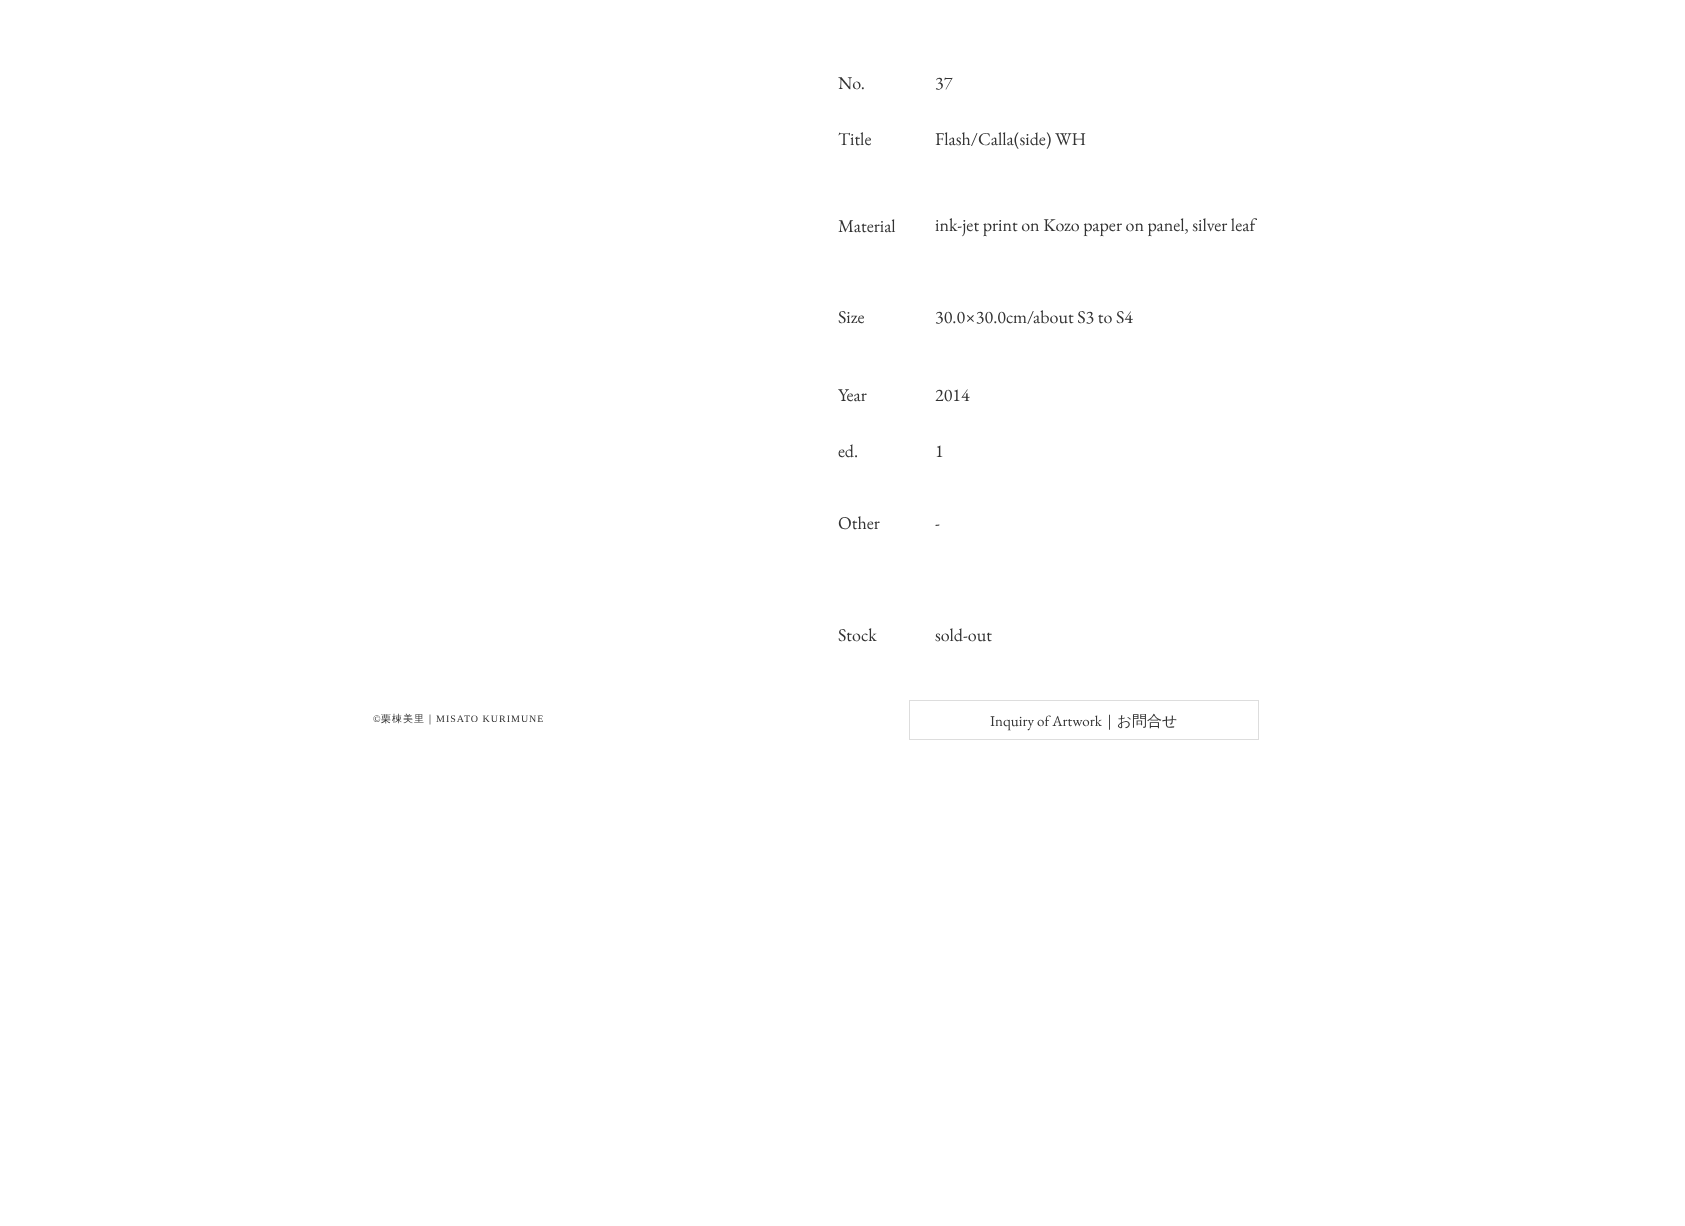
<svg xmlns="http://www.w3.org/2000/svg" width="1685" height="1226">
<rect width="100%" height="100%" fill="#fff"/>
<text x="838" y="89" style="font-family:EB Garamond;font-size:18px;fill:#333">No.</text>
<text x="935" y="89" style="font-family:EB Garamond;font-size:18px;fill:#333">37</text>
<text x="838" y="145" style="font-family:EB Garamond;font-size:18px;fill:#333">Title</text>
<text x="935" y="145" style="font-family:EB Garamond;font-size:18px;fill:#333">Flash/Calla(side) WH</text>
<text x="838" y="232" style="font-family:EB Garamond;font-size:18px;fill:#333">Material</text>
<text x="935" y="231" style="font-family:EB Garamond;font-size:18px;fill:#333">ink-jet print on Kozo paper on panel, silver leaf</text>
<text x="838" y="323" style="font-family:EB Garamond;font-size:18px;fill:#333">Size</text>
<text x="935" y="323" style="font-family:EB Garamond;font-size:18px;fill:#333">30.0×30.0cm/about S3 to S4</text>
<text x="838" y="401" style="font-family:EB Garamond;font-size:18px;fill:#333">Year</text>
<text x="935" y="401" style="font-family:EB Garamond;font-size:18px;fill:#333">2014</text>
<text x="838" y="457" style="font-family:EB Garamond;font-size:18px;fill:#333">ed.</text>
<text x="935" y="457" style="font-family:EB Garamond;font-size:18px;fill:#333">1</text>
<text x="838" y="529" style="font-family:EB Garamond;font-size:18px;fill:#333">Other</text>
<text x="935" y="529" style="font-family:EB Garamond;font-size:18px;fill:#333">-</text>
<text x="838" y="641" style="font-family:EB Garamond;font-size:18px;fill:#333">Stock</text>
<text x="935" y="641" style="font-family:EB Garamond;font-size:18px;fill:#333">sold-out</text>
<text x="373" y="722" style="font-family:Liberation Serif;font-size:10px;letter-spacing:1px;fill:#333">©</text>
<text x="381" y="722" style="font-family:WenQuanYi Zen Hei;font-size:10px;font-weight:500;letter-spacing:1px;fill:#333">栗棟美里｜</text>
<text x="436" y="722" style="font-family:Liberation Serif;font-size:10px;letter-spacing:1px;fill:#333">MISATO KURIMUNE</text>
<rect x="909.5" y="700.5" width="349" height="39" fill="none" stroke="#ddd"/>
<text x="990" y="726" style="font-family:EB Garamond;font-size:15px;fill:#333">Inquiry of Artwork</text>
<text x="1102" y="726" style="font-family:WenQuanYi Zen Hei;font-size:15px;font-weight:500;fill:#333">｜お問合せ</text>
</svg>
